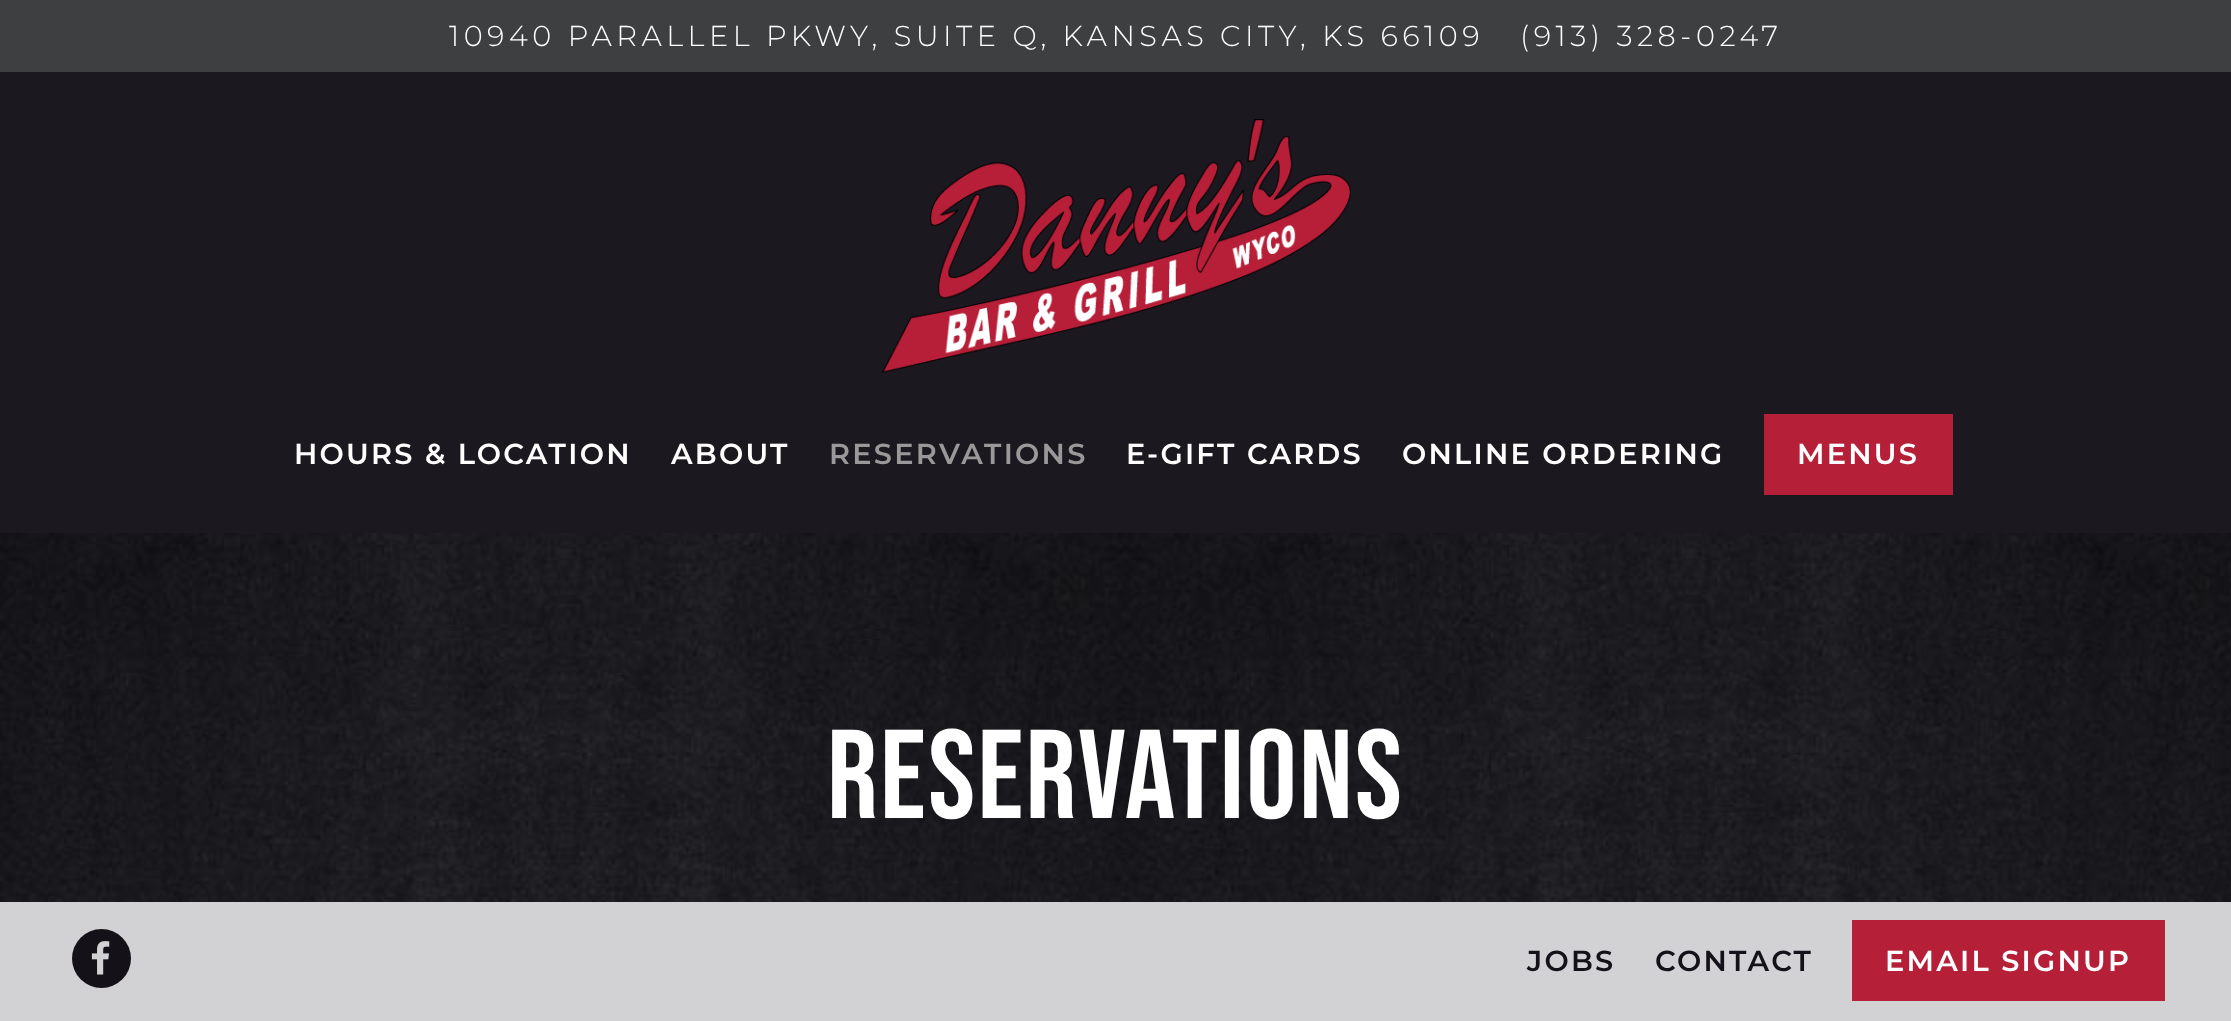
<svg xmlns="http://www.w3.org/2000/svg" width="2231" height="1021">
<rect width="100%" height="100%" fill="#fff"/>
<image x="0" y="533" width="2231" height="369" href="media/1.png"/>
<rect width="2231" height="72" fill="#3d3f40"/>
<text x="449" y="46" style="font-family:Montserrat;font-size:28.8px;font-weight:300;letter-spacing:4.5px;fill:#fff">10940 PARALLEL PKWY, SUITE Q, KANSAS CITY, KS 66109</text>
<text x="1520" y="46" style="font-family:Montserrat;font-size:28.8px;font-weight:300;letter-spacing:4.5px;fill:#fff">(913) 328-0247</text>
<rect y="72" width="2231" height="461" fill="#1b1820"/>
<image x="882" y="119" width="469" height="254" href="media/2.png"/>
<text x="294" y="464" style="font-family:Montserrat;font-size:28.8px;font-weight:600;letter-spacing:2.25px;fill:#fff">HOURS &amp; LOCATION</text>
<text x="671" y="464" style="font-family:Montserrat;font-size:28.8px;font-weight:600;letter-spacing:2.25px;fill:#fff">ABOUT</text>
<text x="829" y="464" style="font-family:Montserrat;font-size:28.8px;font-weight:600;letter-spacing:2.25px;fill:#999">RESERVATIONS</text>
<text x="1126" y="464" style="font-family:Montserrat;font-size:28.8px;font-weight:600;letter-spacing:2.25px;fill:#fff">E-GIFT CARDS</text>
<text x="1402" y="464" style="font-family:Montserrat;font-size:28.8px;font-weight:600;letter-spacing:2.25px;fill:#fff">ONLINE ORDERING</text>
<rect x="1764" y="414" width="189" height="81" fill="#b51f38"/>
<text x="1797" y="464" style="font-family:Montserrat;font-size:28.8px;font-weight:600;letter-spacing:2.25px;fill:#fff">MENUS</text>
<text x="827" y="818" style="font-family:Bebas Neue;font-size:126px;letter-spacing:2.25px;fill:#fff">RESERVATIONS</text>
<rect y="902" width="2231" height="119" fill="#d2d2d4"/>
<circle cx="101.5" cy="958.5" r="29.5" fill="#141218"/>
<image x="91" y="941" width="19" height="34" href="media/3.png"/>
<text x="1527" y="971" style="font-family:Montserrat;font-size:28.8px;font-weight:600;letter-spacing:2.25px;fill:#141218">JOBS</text>
<text x="1655" y="971" style="font-family:Montserrat;font-size:28.8px;font-weight:600;letter-spacing:2.25px;fill:#141218">CONTACT</text>
<rect x="1852" y="920" width="313" height="81" fill="#b51f38"/>
<text x="1885" y="971" style="font-family:Montserrat;font-size:28.8px;font-weight:600;letter-spacing:2.25px;fill:#fff">EMAIL SIGNUP</text>
</svg>
